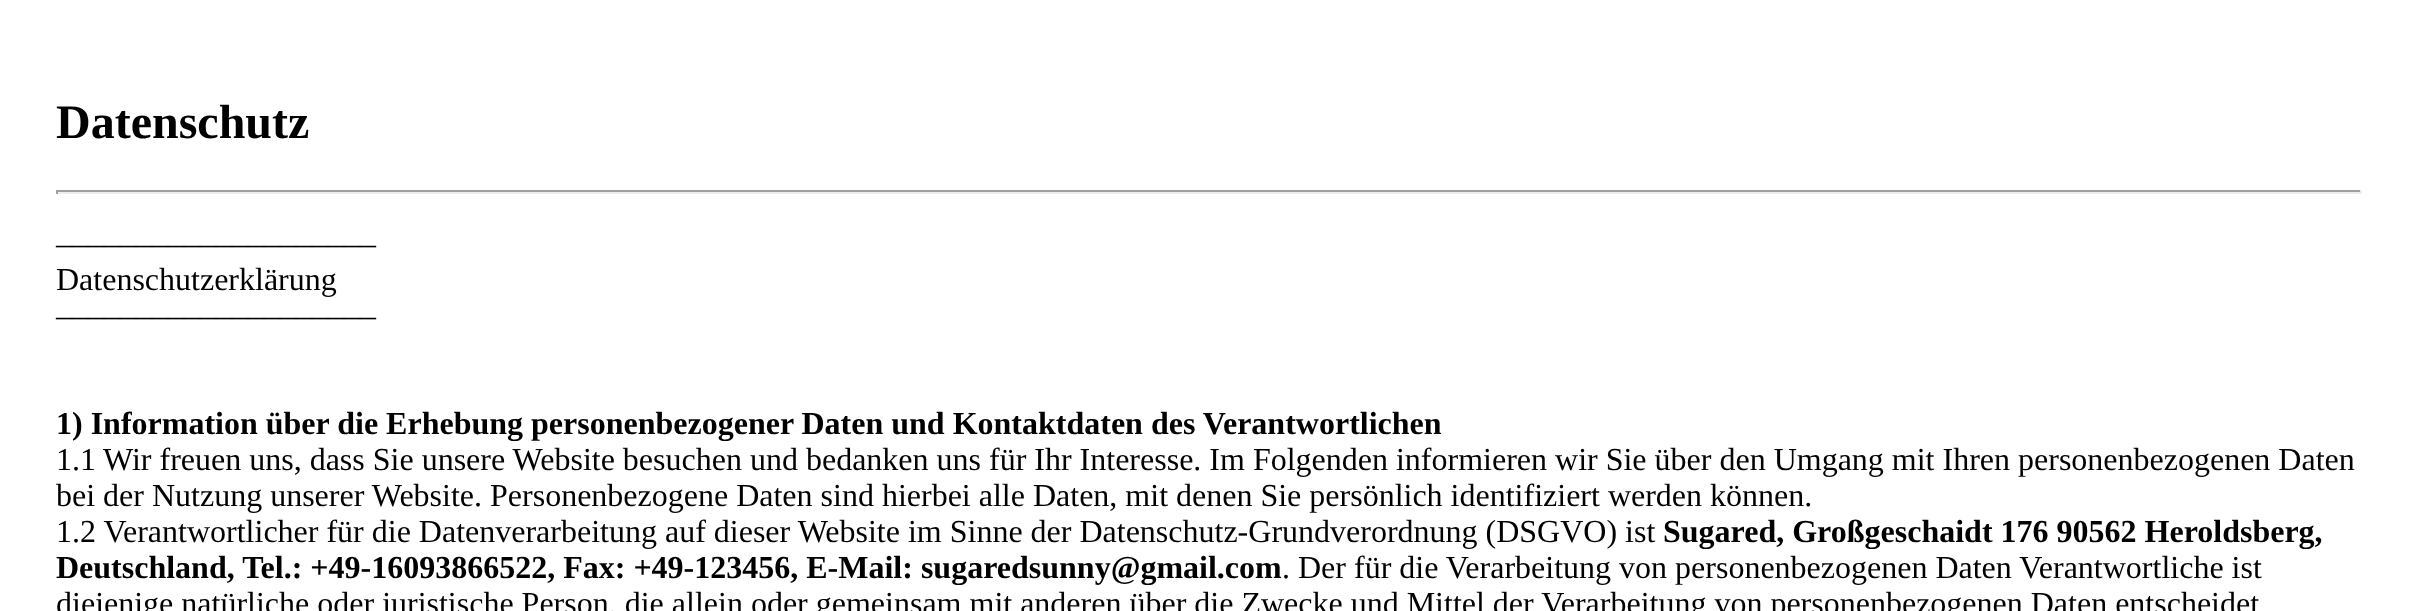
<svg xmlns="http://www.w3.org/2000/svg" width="2418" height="611">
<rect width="100%" height="100%" fill="#fff"/>
<text x="56" y="138" style="font-family:Liberation Serif;font-size:48px;font-weight:bold;fill:#000">Datenschutz</text>
<rect x="56" y="190" width="2306" height="2" fill="#9f9f9f"/>
<rect x="2360" y="190" width="2" height="4" fill="#eee"/>
<rect x="56" y="192" width="2306" height="2" fill="#eee"/>
<rect x="56" y="190" width="2" height="4" fill="#9f9f9f"/>
<text x="56" y="254" style="font-family:Liberation Serif;font-size:32px;fill:#000">––––––––––––––––––––</text>
<text x="56" y="290" style="font-family:Liberation Serif;font-size:32px;fill:#000">Datenschutzerklärung</text>
<text x="56" y="326" style="font-family:Liberation Serif;font-size:32px;fill:#000">––––––––––––––––––––</text>
<text x="56" y="434" style="font-family:Liberation Serif;font-size:32px;font-weight:bold;fill:#000">1) Information über die Erhebung personenbezogener Daten und Kontaktdaten des Verantwortlichen</text>
<text x="56" y="470" style="font-family:Liberation Serif;font-size:32px;fill:#000">1.1</text>
<text x="103" y="470" style="font-family:Liberation Serif;font-size:32px;fill:#000">Wir freuen uns, dass Sie unsere Website besuchen und bedanken uns für Ihr Interesse. Im Folgenden informieren wir Sie über den Umgang mit Ihren personenbezogenen Daten</text>
<text x="56" y="506" style="font-family:Liberation Serif;font-size:32px;fill:#000">bei der Nutzung unserer Website. Personenbezogene Daten sind hierbei alle Daten, mit denen Sie persönlich identifiziert werden können.</text>
<text x="56" y="542" style="font-family:Liberation Serif;font-size:32px;fill:#000">1.2 Verantwortlicher für die Datenverarbeitung auf dieser Website im Sinne der Datenschutz-Grundverordnung (DSGVO) ist</text>
<text x="1663" y="542" style="font-family:Liberation Serif;font-size:32px;font-weight:bold;fill:#000">Sugared, Großgeschaidt 176 90562 Heroldsberg,</text>
<text x="56" y="578" style="font-family:Liberation Serif;font-size:32px;font-weight:bold;fill:#000">Deutschland, Tel.: +49-16093866522, Fax: +49-123456, E-Mail: sugaredsunny@gmail.com</text>
<text x="1282" y="578" style="font-family:Liberation Serif;font-size:32px;fill:#000">. Der für die Verarbeitung von personenbezogenen Daten Verantwortliche ist</text>
<text x="56" y="614" style="font-family:Liberation Serif;font-size:32px;fill:#000">diejenige natürliche oder juristische Person, die allein oder gemeinsam mit anderen über die Zwecke und Mittel der Verarbeitung von personenbezogenen Daten entscheidet</text>
</svg>
